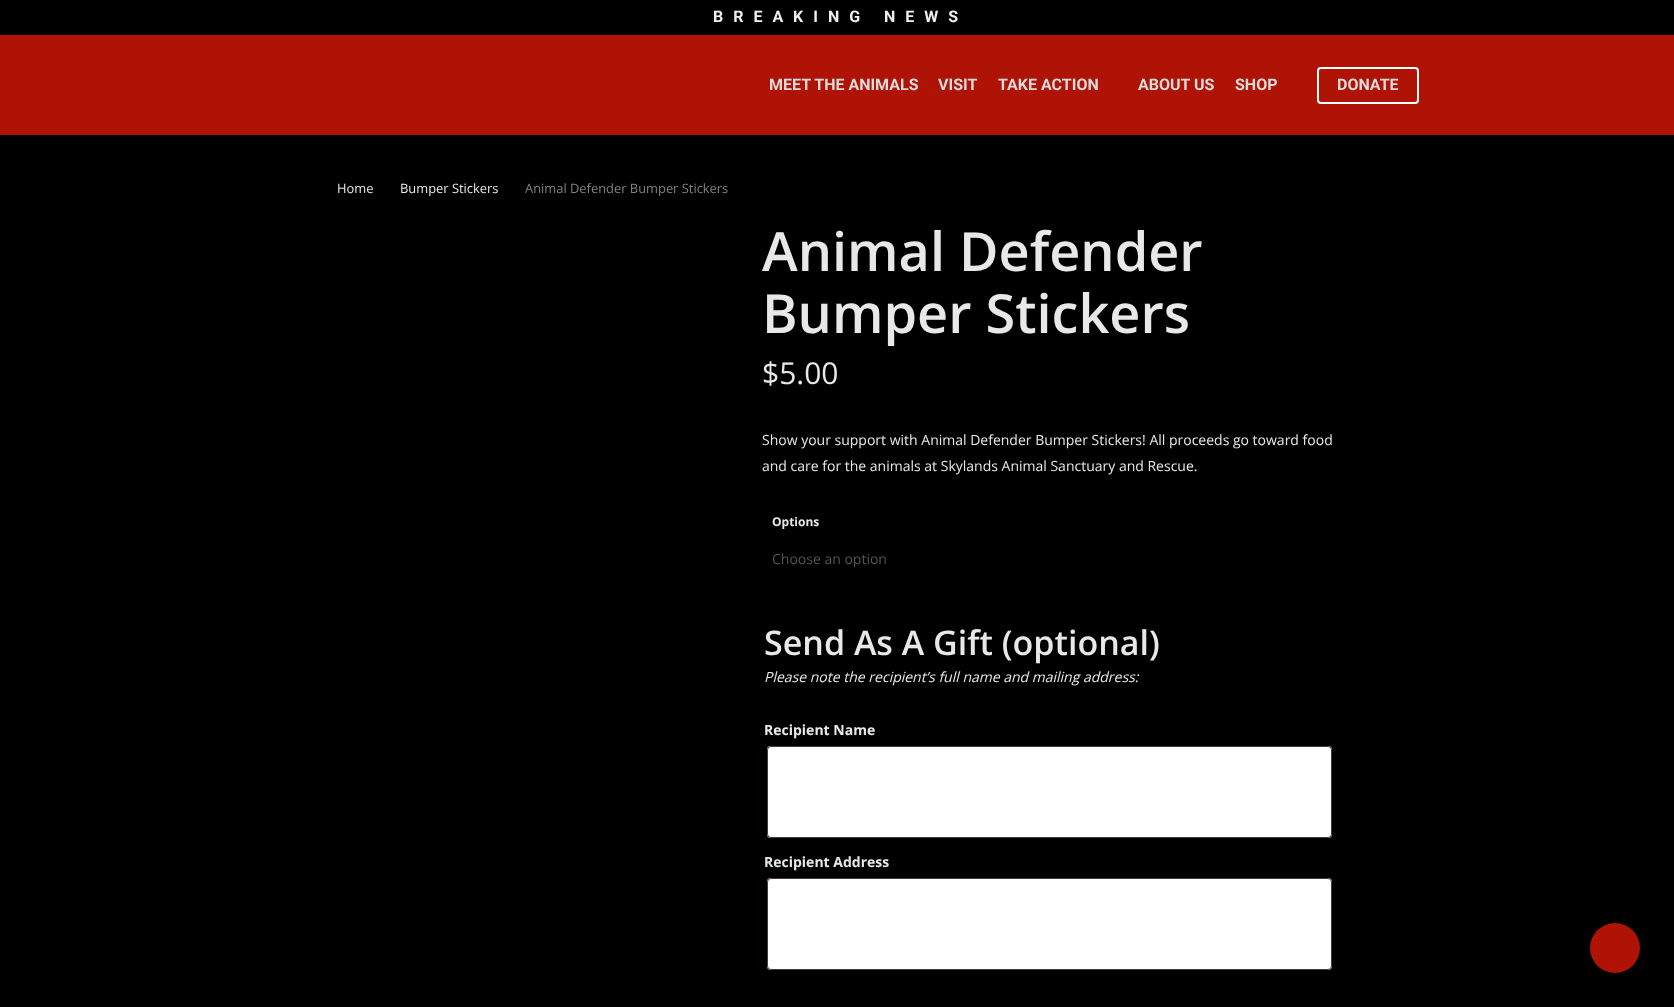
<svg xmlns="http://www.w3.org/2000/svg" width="1674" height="1007">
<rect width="100%" height="100%" fill="#000"/>
<rect y="35" width="1674" height="100" fill="#af1306"/>
<text x="713" y="22" style="font-family:Roboto;font-size:16px;font-weight:bold;letter-spacing:3px;fill:#efefef">B R E A K I N G</text>
<text x="884" y="22" style="font-family:Roboto;font-size:16px;font-weight:bold;letter-spacing:3px;fill:#efefef">N E W S</text>
<text x="769" y="90" style="font-family:Roboto;font-size:16px;font-weight:bold;fill:#dbdbdb">MEET THE ANIMALS</text>
<text x="938" y="90" style="font-family:Roboto;font-size:16px;font-weight:bold;fill:#dbdbdb">VISIT</text>
<text x="998" y="90" style="font-family:Roboto;font-size:16px;font-weight:bold;fill:#dbdbdb">TAKE ACTION</text>
<text x="1138" y="90" style="font-family:Roboto;font-size:16px;font-weight:bold;fill:#dbdbdb">ABOUT US</text>
<text x="1235" y="90" style="font-family:Roboto;font-size:16px;font-weight:bold;fill:#dbdbdb">SHOP</text>
<rect x="1318" y="68" width="100" height="35" rx="3" fill="none" stroke="#fff" stroke-width="2"/>
<text x="1337" y="90" style="font-family:Roboto;font-size:16px;font-weight:bold;fill:#dbdbdb">DONATE</text>
<text x="337" y="193" style="font-family:Open Sans;font-size:12.9px;fill:#e8e8e8">Home</text>
<text x="400" y="193" style="font-family:Open Sans;font-size:12.9px;fill:#e8e8e8">Bumper Stickers</text>
<text x="525" y="193" style="font-family:Open Sans;font-size:12.9px;fill:#808080">Animal Defender Bumper Stickers</text>
<text x="762" y="271" style="font-family:Open Sans;font-size:54px;font-weight:600;fill:#e8e8e8">Animal Defender</text>
<text x="762" y="333" style="font-family:Open Sans;font-size:54px;font-weight:600;fill:#e8e8e8">Bumper Stickers</text>
<text x="762" y="384" style="font-family:Open Sans;font-size:30px;fill:#e8e8e8">$5.00</text>
<text x="762" y="445" style="font-family:Open Sans;font-size:14px;fill:#e8e8e8">Show your support with Animal Defender Bumper Stickers! All proceeds go toward food</text>
<text x="762" y="471" style="font-family:Open Sans;font-size:14px;fill:#e8e8e8">and care for the animals at Skylands Animal Sanctuary and Rescue.</text>
<text x="772" y="526" style="font-family:Open Sans;font-size:12px;font-weight:bold;fill:#e8e8e8">Options</text>
<text x="772" y="564" style="font-family:Open Sans;font-size:14px;fill:#555">Choose an option</text>
<text x="764" y="655" style="font-family:Open Sans;font-size:34px;font-weight:600;fill:#e8e8e8">Send As A Gift (optional)</text>
<text x="764" y="682" style="font-family:Open Sans;font-size:14px;font-style:italic;fill:#e8e8e8">Please note the recipient’s full name and mailing address:</text>
<text x="764" y="735" style="font-family:Open Sans;font-size:14px;font-weight:bold;fill:#e8e8e8">Recipient Name</text>
<rect x="767" y="746" width="565" height="92" rx="4" fill="#fff"/>
<rect x="767.5" y="746.5" width="564" height="91" rx="3.5" fill="none" stroke="#200707cc"/>
<text x="764" y="867" style="font-family:Open Sans;font-size:14px;font-weight:bold;fill:#e8e8e8">Recipient Address</text>
<rect x="767" y="878" width="565" height="92" rx="4" fill="#fff"/>
<rect x="767.5" y="878.5" width="564" height="91" rx="3.5" fill="none" stroke="#200707cc"/>
<circle cx="1615" cy="948" r="25" fill="#af1306"/>
</svg>
